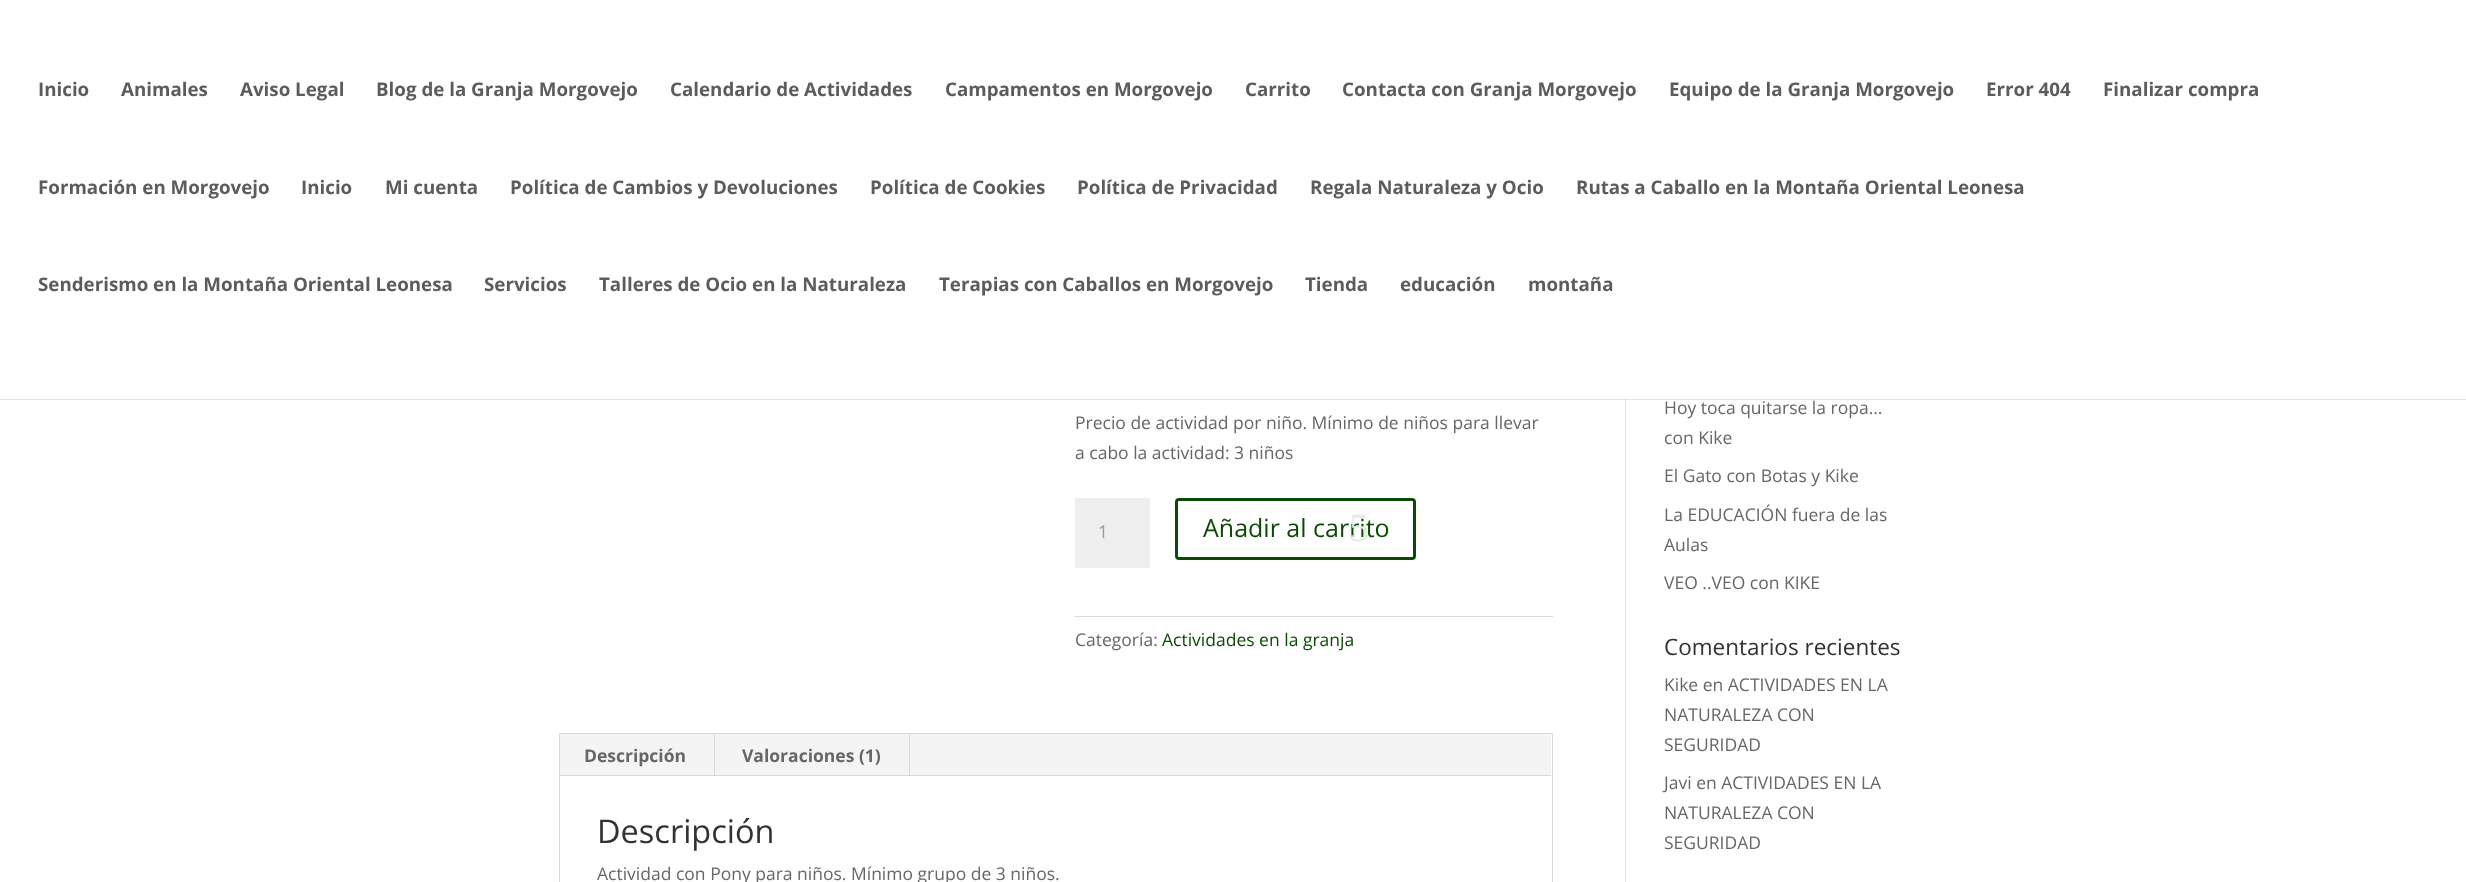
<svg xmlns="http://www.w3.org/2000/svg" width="2466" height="882">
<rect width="100%" height="100%" fill="#fff"/>
<rect x="1625" y="399" width="1" height="483" fill="#e2e2e2"/>
<rect y="399" width="2466" height="1" fill="#0000001a"/>
<text x="38" y="96" style="font-family:Open Sans;font-size:18.75px;font-weight:bold;fill:#5c5c5c">Inicio</text>
<text x="121" y="96" style="font-family:Open Sans;font-size:18.75px;font-weight:bold;fill:#5c5c5c">Animales</text>
<text x="240" y="96" style="font-family:Open Sans;font-size:18.75px;font-weight:bold;fill:#5c5c5c">Aviso Legal</text>
<text x="376" y="96" style="font-family:Open Sans;font-size:18.75px;font-weight:bold;fill:#5c5c5c">Blog de la Granja Morgovejo</text>
<text x="670" y="96" style="font-family:Open Sans;font-size:18.75px;font-weight:bold;fill:#5c5c5c">Calendario de Actividades</text>
<text x="945" y="96" style="font-family:Open Sans;font-size:18.75px;font-weight:bold;fill:#5c5c5c">Campamentos en Morgovejo</text>
<text x="1245" y="96" style="font-family:Open Sans;font-size:18.75px;font-weight:bold;fill:#5c5c5c">Carrito</text>
<text x="1342" y="96" style="font-family:Open Sans;font-size:18.75px;font-weight:bold;fill:#5c5c5c">Contacta con Granja Morgovejo</text>
<text x="1669" y="96" style="font-family:Open Sans;font-size:18.75px;font-weight:bold;fill:#5c5c5c">Equipo de la Granja Morgovejo</text>
<text x="1986" y="96" style="font-family:Open Sans;font-size:18.75px;font-weight:bold;fill:#5c5c5c">Error 404</text>
<text x="2103" y="96" style="font-family:Open Sans;font-size:18.75px;font-weight:bold;fill:#5c5c5c">Finalizar compra</text>
<text x="38" y="194" style="font-family:Open Sans;font-size:18.75px;font-weight:bold;fill:#5c5c5c">Formación en Morgovejo</text>
<text x="301" y="194" style="font-family:Open Sans;font-size:18.75px;font-weight:bold;fill:#5c5c5c">Inicio</text>
<text x="385" y="194" style="font-family:Open Sans;font-size:18.75px;font-weight:bold;fill:#5c5c5c">Mi cuenta</text>
<text x="510" y="194" style="font-family:Open Sans;font-size:18.75px;font-weight:bold;fill:#5c5c5c">Política de Cambios y Devoluciones</text>
<text x="870" y="194" style="font-family:Open Sans;font-size:18.75px;font-weight:bold;fill:#5c5c5c">Política de Cookies</text>
<text x="1077" y="194" style="font-family:Open Sans;font-size:18.75px;font-weight:bold;fill:#5c5c5c">Política de Privacidad</text>
<text x="1310" y="194" style="font-family:Open Sans;font-size:18.75px;font-weight:bold;fill:#5c5c5c">Regala Naturaleza y Ocio</text>
<text x="1576" y="194" style="font-family:Open Sans;font-size:18.75px;font-weight:bold;fill:#5c5c5c">Rutas a Caballo en la Montaña Oriental Leonesa</text>
<text x="38" y="291" style="font-family:Open Sans;font-size:18.75px;font-weight:bold;fill:#5c5c5c">Senderismo en la Montaña Oriental Leonesa</text>
<text x="484" y="291" style="font-family:Open Sans;font-size:18.75px;font-weight:bold;fill:#5c5c5c">Servicios</text>
<text x="599" y="291" style="font-family:Open Sans;font-size:18.75px;font-weight:bold;fill:#5c5c5c">Talleres de Ocio en la Naturaleza</text>
<text x="939" y="291" style="font-family:Open Sans;font-size:18.75px;font-weight:bold;fill:#5c5c5c">Terapias con Caballos en Morgovejo</text>
<text x="1305" y="291" style="font-family:Open Sans;font-size:18.75px;font-weight:bold;fill:#5c5c5c">Tienda</text>
<text x="1400" y="291" style="font-family:Open Sans;font-size:18.75px;font-weight:bold;fill:#5c5c5c">educación</text>
<text x="1528" y="291" style="font-family:Open Sans;font-size:18.75px;font-weight:bold;fill:#5c5c5c">montaña</text>
<text x="1075" y="429" style="font-family:Open Sans;font-size:17.5px;fill:#666">Precio de actividad por niño. Mínimo de niños para llevar</text>
<text x="1075" y="459" style="font-family:Open Sans;font-size:17.5px;fill:#666">a cabo la actividad: 3 niños</text>
<rect x="1075" y="498" width="75" height="70" fill="#eee"/>
<text x="1098" y="538" style="font-family:Open Sans;font-size:17.5px;fill:#999">1</text>
<rect x="1176.5" y="499.5" width="238" height="59" rx="2.5" fill="none" stroke="#0b4904" stroke-width="3"/>
<text x="1203" y="537" style="font-family:Open Sans;font-size:25px;fill:#0b4904">Añadir al carrito</text>
<text x="1349" y="541" style="font-family:Liberation Serif;font-size:40px;fill:#e5ece4">5</text>
<rect x="1075" y="616" width="478" height="1" fill="#dadada"/>
<text x="1075" y="646" style="font-family:Open Sans;font-size:17.5px;fill:#666">Categoría:</text>
<text x="1162" y="646" style="font-family:Open Sans;font-size:17.5px;fill:#0b4904">Actividades en la granja</text>
<rect x="559.5" y="733.5" width="993" height="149" fill="none" stroke="#d9d9d9"/>
<rect x="560" y="734" width="991" height="41" fill="#f4f4f4"/>
<rect x="714" y="734" width="1" height="42" fill="#d9d9d9"/>
<text x="584" y="762" style="font-family:Open Sans;font-size:17.5px;font-weight:bold;fill:#666">Descripción</text>
<rect x="909" y="734" width="1" height="42" fill="#d9d9d9"/>
<text x="742" y="762" style="font-family:Open Sans;font-size:17.5px;font-weight:bold;fill:#666">Valoraciones (1)</text>
<rect x="560" y="775" width="991" height="1" fill="#d9d9d9"/>
<text x="597" y="843" style="font-family:Open Sans;font-size:32.5px;fill:#333">Descripción</text>
<text x="597" y="880" style="font-family:Open Sans;font-size:17.5px;fill:#666">Actividad con Pony para niños. Mínimo grupo de 3 niños.</text>
<text x="1664" y="414" style="font-family:Open Sans;font-size:17.5px;fill:#666">Hoy toca quitarse la ropa…</text>
<text x="1664" y="444" style="font-family:Open Sans;font-size:17.5px;fill:#666">con Kike</text>
<text x="1664" y="482" style="font-family:Open Sans;font-size:17.5px;fill:#666">El Gato con Botas y Kike</text>
<text x="1664" y="521" style="font-family:Open Sans;font-size:17.5px;fill:#666">La EDUCACIÓN fuera de las</text>
<text x="1664" y="551" style="font-family:Open Sans;font-size:17.5px;fill:#666">Aulas</text>
<text x="1664" y="589" style="font-family:Open Sans;font-size:17.5px;fill:#666">VEO ..VEO con KIKE</text>
<text x="1664" y="655" style="font-family:Open Sans;font-size:22.5px;fill:#333">Comentarios recientes</text>
<text x="1664" y="691" style="font-family:Open Sans;font-size:17.5px;fill:#666">Kike en ACTIVIDADES EN LA</text>
<text x="1664" y="721" style="font-family:Open Sans;font-size:17.5px;fill:#666">NATURALEZA CON</text>
<text x="1664" y="751" style="font-family:Open Sans;font-size:17.5px;fill:#666">SEGURIDAD</text>
<text x="1664" y="789" style="font-family:Open Sans;font-size:17.5px;fill:#666">Javi en ACTIVIDADES EN LA</text>
<text x="1664" y="819" style="font-family:Open Sans;font-size:17.5px;fill:#666">NATURALEZA CON</text>
<text x="1664" y="849" style="font-family:Open Sans;font-size:17.5px;fill:#666">SEGURIDAD</text>
</svg>
